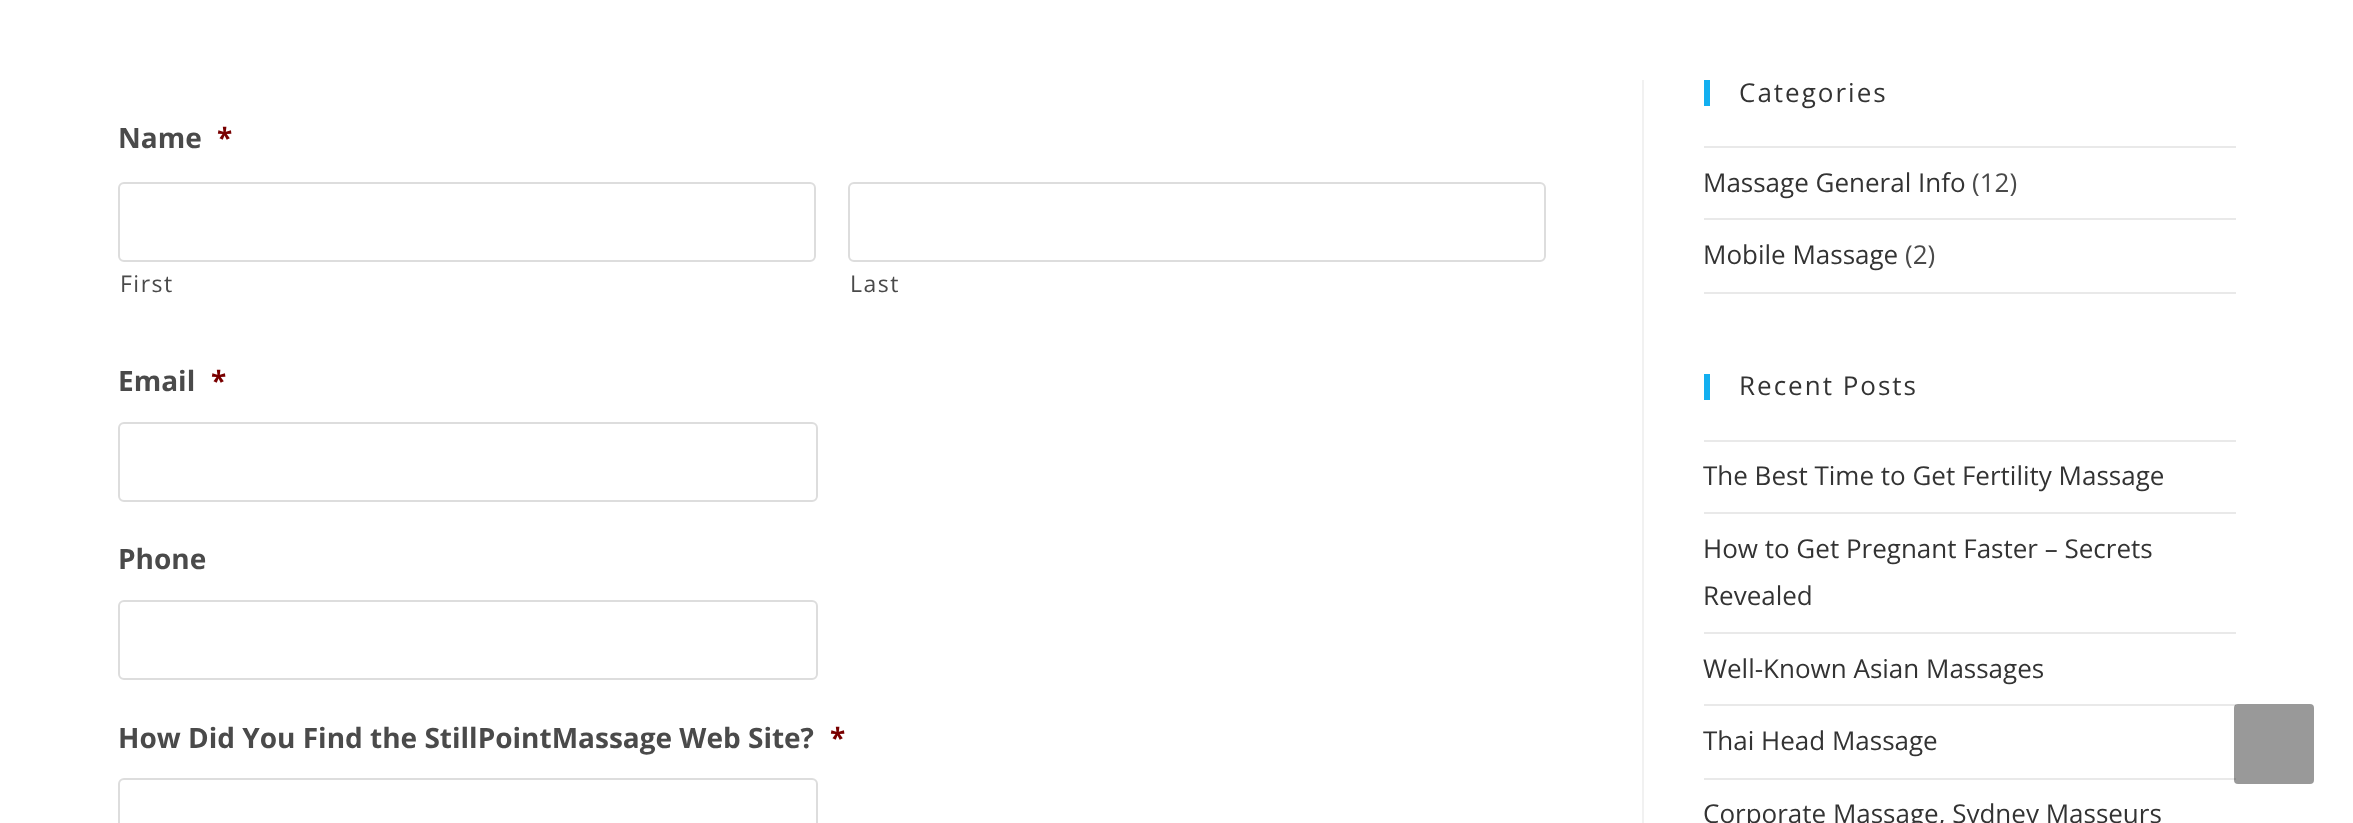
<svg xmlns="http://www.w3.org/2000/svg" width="2353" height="823">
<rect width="100%" height="100%" fill="#fff"/>
<rect x="1642" y="80" width="2" height="743" fill="#f1f1f1"/>
<text x="118" y="148" style="font-family:Open Sans;font-size:28px;font-weight:bold;fill:#4a4a4a">Name</text>
<text x="217" y="148" style="font-family:Open Sans;font-size:28px;font-weight:bold;fill:#790000">*</text>
<rect x="119" y="183" width="696" height="78" rx="5" fill="none" stroke="#ddd" stroke-width="2"/>
<text x="120" y="292" style="font-family:Open Sans;font-size:23px;letter-spacing:1.5px;fill:#4a4a4a">First</text>
<rect x="849" y="183" width="696" height="78" rx="5" fill="none" stroke="#ddd" stroke-width="2"/>
<text x="850" y="292" style="font-family:Open Sans;font-size:23px;letter-spacing:1.5px;fill:#4a4a4a">Last</text>
<text x="118" y="391" style="font-family:Open Sans;font-size:28px;font-weight:bold;fill:#4a4a4a">Email</text>
<text x="211" y="391" style="font-family:Open Sans;font-size:28px;font-weight:bold;fill:#790000">*</text>
<rect x="119" y="423" width="698" height="78" rx="5" fill="none" stroke="#ddd" stroke-width="2"/>
<text x="118" y="569" style="font-family:Open Sans;font-size:28px;font-weight:bold;fill:#4a4a4a">Phone</text>
<rect x="119" y="601" width="698" height="78" rx="5" fill="none" stroke="#ddd" stroke-width="2"/>
<text x="118" y="748" style="font-family:Open Sans;font-size:28px;font-weight:bold;fill:#4a4a4a">How Did You Find the StillPointMassage Web Site?</text>
<text x="830" y="748" style="font-family:Open Sans;font-size:28px;font-weight:bold;fill:#790000">*</text>
<rect x="119" y="779" width="698" height="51" rx="5" fill="none" stroke="#ddd" stroke-width="2"/>
<rect x="1704" y="80" width="6" height="26" fill="#13aff0"/>
<text x="1739" y="102" style="font-family:Open Sans;font-size:26px;letter-spacing:2px;fill:#333">Categories</text>
<rect x="1704" y="146" width="532" height="2" fill="#e9e9e9"/>
<rect x="1704" y="218" width="532" height="2" fill="#e9e9e9"/>
<text x="1703" y="192" style="font-family:Open Sans;font-size:26px;fill:#333">Massage General Info</text>
<text x="1972" y="192" style="font-family:Open Sans;font-size:26px;fill:#4a4a4a">(12)</text>
<rect x="1704" y="292" width="532" height="2" fill="#e9e9e9"/>
<text x="1703" y="264" style="font-family:Open Sans;font-size:26px;fill:#333">Mobile Massage</text>
<text x="1905" y="264" style="font-family:Open Sans;font-size:26px;fill:#4a4a4a">(2)</text>
<rect x="1704" y="374" width="6" height="26" fill="#13aff0"/>
<text x="1739" y="395" style="font-family:Open Sans;font-size:26px;letter-spacing:2px;fill:#333">Recent Posts</text>
<rect x="1704" y="440" width="532" height="2" fill="#e9e9e9"/>
<rect x="1704" y="512" width="532" height="2" fill="#e9e9e9"/>
<text x="1703" y="485" style="font-family:Open Sans;font-size:26px;fill:#333">The Best Time to Get Fertility Massage</text>
<rect x="1704" y="632" width="532" height="2" fill="#e9e9e9"/>
<text x="1703" y="558" style="font-family:Open Sans;font-size:26px;fill:#333">How to Get Pregnant Faster – Secrets</text>
<text x="1703" y="605" style="font-family:Open Sans;font-size:26px;fill:#333">Revealed</text>
<rect x="1704" y="704" width="532" height="2" fill="#e9e9e9"/>
<text x="1703" y="678" style="font-family:Open Sans;font-size:26px;fill:#333">Well-Known Asian Massages</text>
<rect x="1704" y="778" width="532" height="2" fill="#e9e9e9"/>
<text x="1703" y="750" style="font-family:Open Sans;font-size:26px;fill:#333">Thai Head Massage</text>
<text x="1703" y="823" style="font-family:Open Sans;font-size:26px;fill:#333">Corporate Massage, Sydney Masseurs</text>
<rect x="2234" y="704" width="80" height="80" rx="4" fill="#00000066"/>
</svg>
